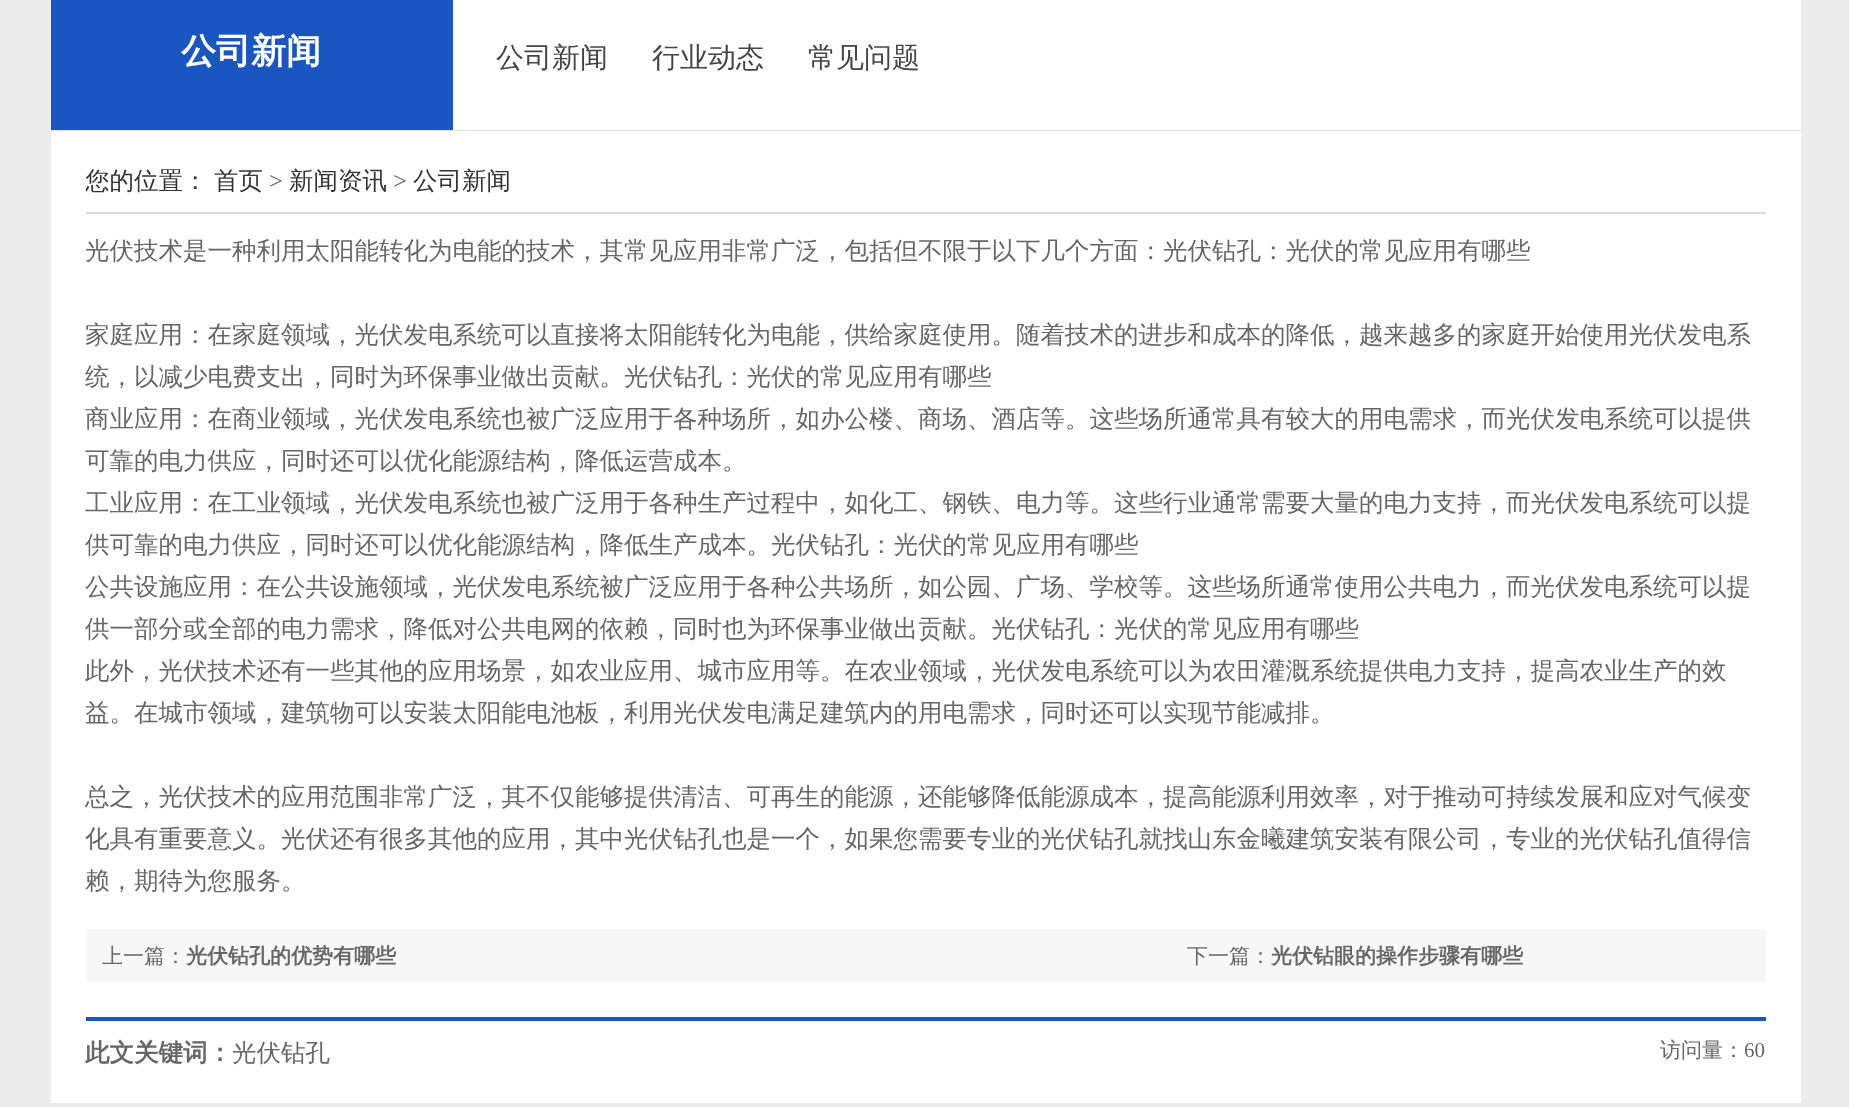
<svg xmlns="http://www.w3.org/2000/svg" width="1849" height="1107">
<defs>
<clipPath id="clip1"><rect x="86" y="166" width="1680" height="46"/></clipPath>
</defs>
<rect width="100%" height="100%" fill="#ececec"/>
<rect x="51" width="402" height="130" fill="#1a56c2"/>
<text x="181" y="63" style="font-family:WenQuanYi Zen Hei;font-size:35px;font-weight:bold;fill:#fff">公司新闻</text>
<rect x="453" width="1348" height="130" fill="#fff"/>
<rect x="51" y="130" width="1750" height="1" fill="#e2e2e2"/>
<text x="496" y="67" style="font-family:WenQuanYi Zen Hei;font-size:28px;font-weight:500;fill:#464545">公司新闻</text>
<text x="652" y="67" style="font-family:WenQuanYi Zen Hei;font-size:28px;font-weight:500;fill:#464545">行业动态</text>
<text x="808" y="67" style="font-family:WenQuanYi Zen Hei;font-size:28px;font-weight:500;fill:#464545">常见问题</text>
<rect x="51" y="131" width="1750" height="972" fill="#fff"/>
<rect x="86" y="212" width="1680" height="2" fill="#dbdbdb"/>
<g clip-path="url(#clip1)">
<text x="85" y="189" style="font-family:WenQuanYi Zen Hei;font-size:24.5px;font-weight:500;fill:#333">您的位置：</text>
</g>
<text x="214" y="189" style="font-family:WenQuanYi Zen Hei;font-size:24.5px;font-weight:500;fill:#333">首页</text>
<text x="269" y="189" style="font-family:Liberation Serif;font-size:24.5px;fill:#666">&gt;</text>
<text x="289" y="189" style="font-family:WenQuanYi Zen Hei;font-size:24.5px;font-weight:500;fill:#333">新闻资讯</text>
<text x="393" y="189" style="font-family:Liberation Serif;font-size:24.5px;fill:#666">&gt;</text>
<text x="413" y="189" style="font-family:WenQuanYi Zen Hei;font-size:24.5px;font-weight:500;fill:#333">公司新闻</text>
<text x="85" y="259" style="font-family:WenQuanYi Zen Hei;font-size:24.5px;font-weight:500;fill:#666">光伏技术是一种利用太阳能转化为电能的技术，其常见应用非常广泛，包括但不限于以下几个方面：光伏钻孔：光伏的常见应用有哪些</text>
<text x="85" y="343" style="font-family:WenQuanYi Zen Hei;font-size:24.5px;font-weight:500;fill:#666">家庭应用：在家庭领域，光伏发电系统可以直接将太阳能转化为电能，供给家庭使用。随着技术的进步和成本的降低，越来越多的家庭开始使用光伏发电系</text>
<text x="85" y="385" style="font-family:WenQuanYi Zen Hei;font-size:24.5px;font-weight:500;fill:#666">统，以减少电费支出，同时为环保事业做出贡献。光伏钻孔：光伏的常见应用有哪些</text>
<text x="85" y="427" style="font-family:WenQuanYi Zen Hei;font-size:24.5px;font-weight:500;fill:#666">商业应用：在商业领域，光伏发电系统也被广泛应用于各种场所，如办公楼、商场、酒店等。这些场所通常具有较大的用电需求，而光伏发电系统可以提供</text>
<text x="85" y="469" style="font-family:WenQuanYi Zen Hei;font-size:24.5px;font-weight:500;fill:#666">可靠的电力供应，同时还可以优化能源结构，降低运营成本。</text>
<text x="85" y="511" style="font-family:WenQuanYi Zen Hei;font-size:24.5px;font-weight:500;fill:#666">工业应用：在工业领域，光伏发电系统也被广泛用于各种生产过程中，如化工、钢铁、电力等。这些行业通常需要大量的电力支持，而光伏发电系统可以提</text>
<text x="85" y="553" style="font-family:WenQuanYi Zen Hei;font-size:24.5px;font-weight:500;fill:#666">供可靠的电力供应，同时还可以优化能源结构，降低生产成本。光伏钻孔：光伏的常见应用有哪些</text>
<text x="85" y="595" style="font-family:WenQuanYi Zen Hei;font-size:24.5px;font-weight:500;fill:#666">公共设施应用：在公共设施领域，光伏发电系统被广泛应用于各种公共场所，如公园、广场、学校等。这些场所通常使用公共电力，而光伏发电系统可以提</text>
<text x="85" y="637" style="font-family:WenQuanYi Zen Hei;font-size:24.5px;font-weight:500;fill:#666">供一部分或全部的电力需求，降低对公共电网的依赖，同时也为环保事业做出贡献。光伏钻孔：光伏的常见应用有哪些</text>
<text x="85" y="679" style="font-family:WenQuanYi Zen Hei;font-size:24.5px;font-weight:500;fill:#666">此外，光伏技术还有一些其他的应用场景，如农业应用、城市应用等。在农业领域，光伏发电系统可以为农田灌溉系统提供电力支持，提高农业生产的效</text>
<text x="85" y="721" style="font-family:WenQuanYi Zen Hei;font-size:24.5px;font-weight:500;fill:#666">益。在城市领域，建筑物可以安装太阳能电池板，利用光伏发电满足建筑内的用电需求，同时还可以实现节能减排。</text>
<text x="85" y="805" style="font-family:WenQuanYi Zen Hei;font-size:24.5px;font-weight:500;fill:#666">总之，光伏技术的应用范围非常广泛，其不仅能够提供清洁、可再生的能源，还能够降低能源成本，提高能源利用效率，对于推动可持续发展和应对气候变</text>
<text x="85" y="847" style="font-family:WenQuanYi Zen Hei;font-size:24.5px;font-weight:500;fill:#666">化具有重要意义。光伏还有很多其他的应用，其中光伏钻孔也是一个，如果您需要专业的光伏钻孔就找山东金曦建筑安装有限公司，专业的光伏钻孔值得信</text>
<text x="85" y="889" style="font-family:WenQuanYi Zen Hei;font-size:24.5px;font-weight:500;fill:#666">赖，期待为您服务。</text>
<rect x="86" y="929" width="1680" height="53" fill="#f7f7f7"/>
<text x="102" y="963" style="font-family:WenQuanYi Zen Hei;font-size:21px;font-weight:500;fill:#666">上一篇：</text>
<text x="186" y="963" style="font-family:WenQuanYi Zen Hei;font-size:21px;font-weight:bold;fill:#666">光伏钻孔的优势有哪些</text>
<text x="1187" y="963" style="font-family:WenQuanYi Zen Hei;font-size:21px;font-weight:500;fill:#666">下一篇：</text>
<text x="1271" y="963" style="font-family:WenQuanYi Zen Hei;font-size:21px;font-weight:bold;fill:#666">光伏钻眼的操作步骤有哪些</text>
<rect x="86" y="1017" width="1680" height="4" fill="#1a56c2"/>
<text x="85" y="1061" style="font-family:WenQuanYi Zen Hei;font-size:24.5px;font-weight:bold;fill:#666">此文关键词：</text>
<text x="232" y="1061" style="font-family:WenQuanYi Zen Hei;font-size:24.5px;font-weight:500;fill:#666">光伏钻孔</text>
<text x="1660" y="1057" style="font-family:WenQuanYi Zen Hei;font-size:21px;font-weight:500;fill:#666">访问量：</text>
<text x="1744" y="1057" style="font-family:Liberation Serif;font-size:21px;fill:#666">60</text>
</svg>
